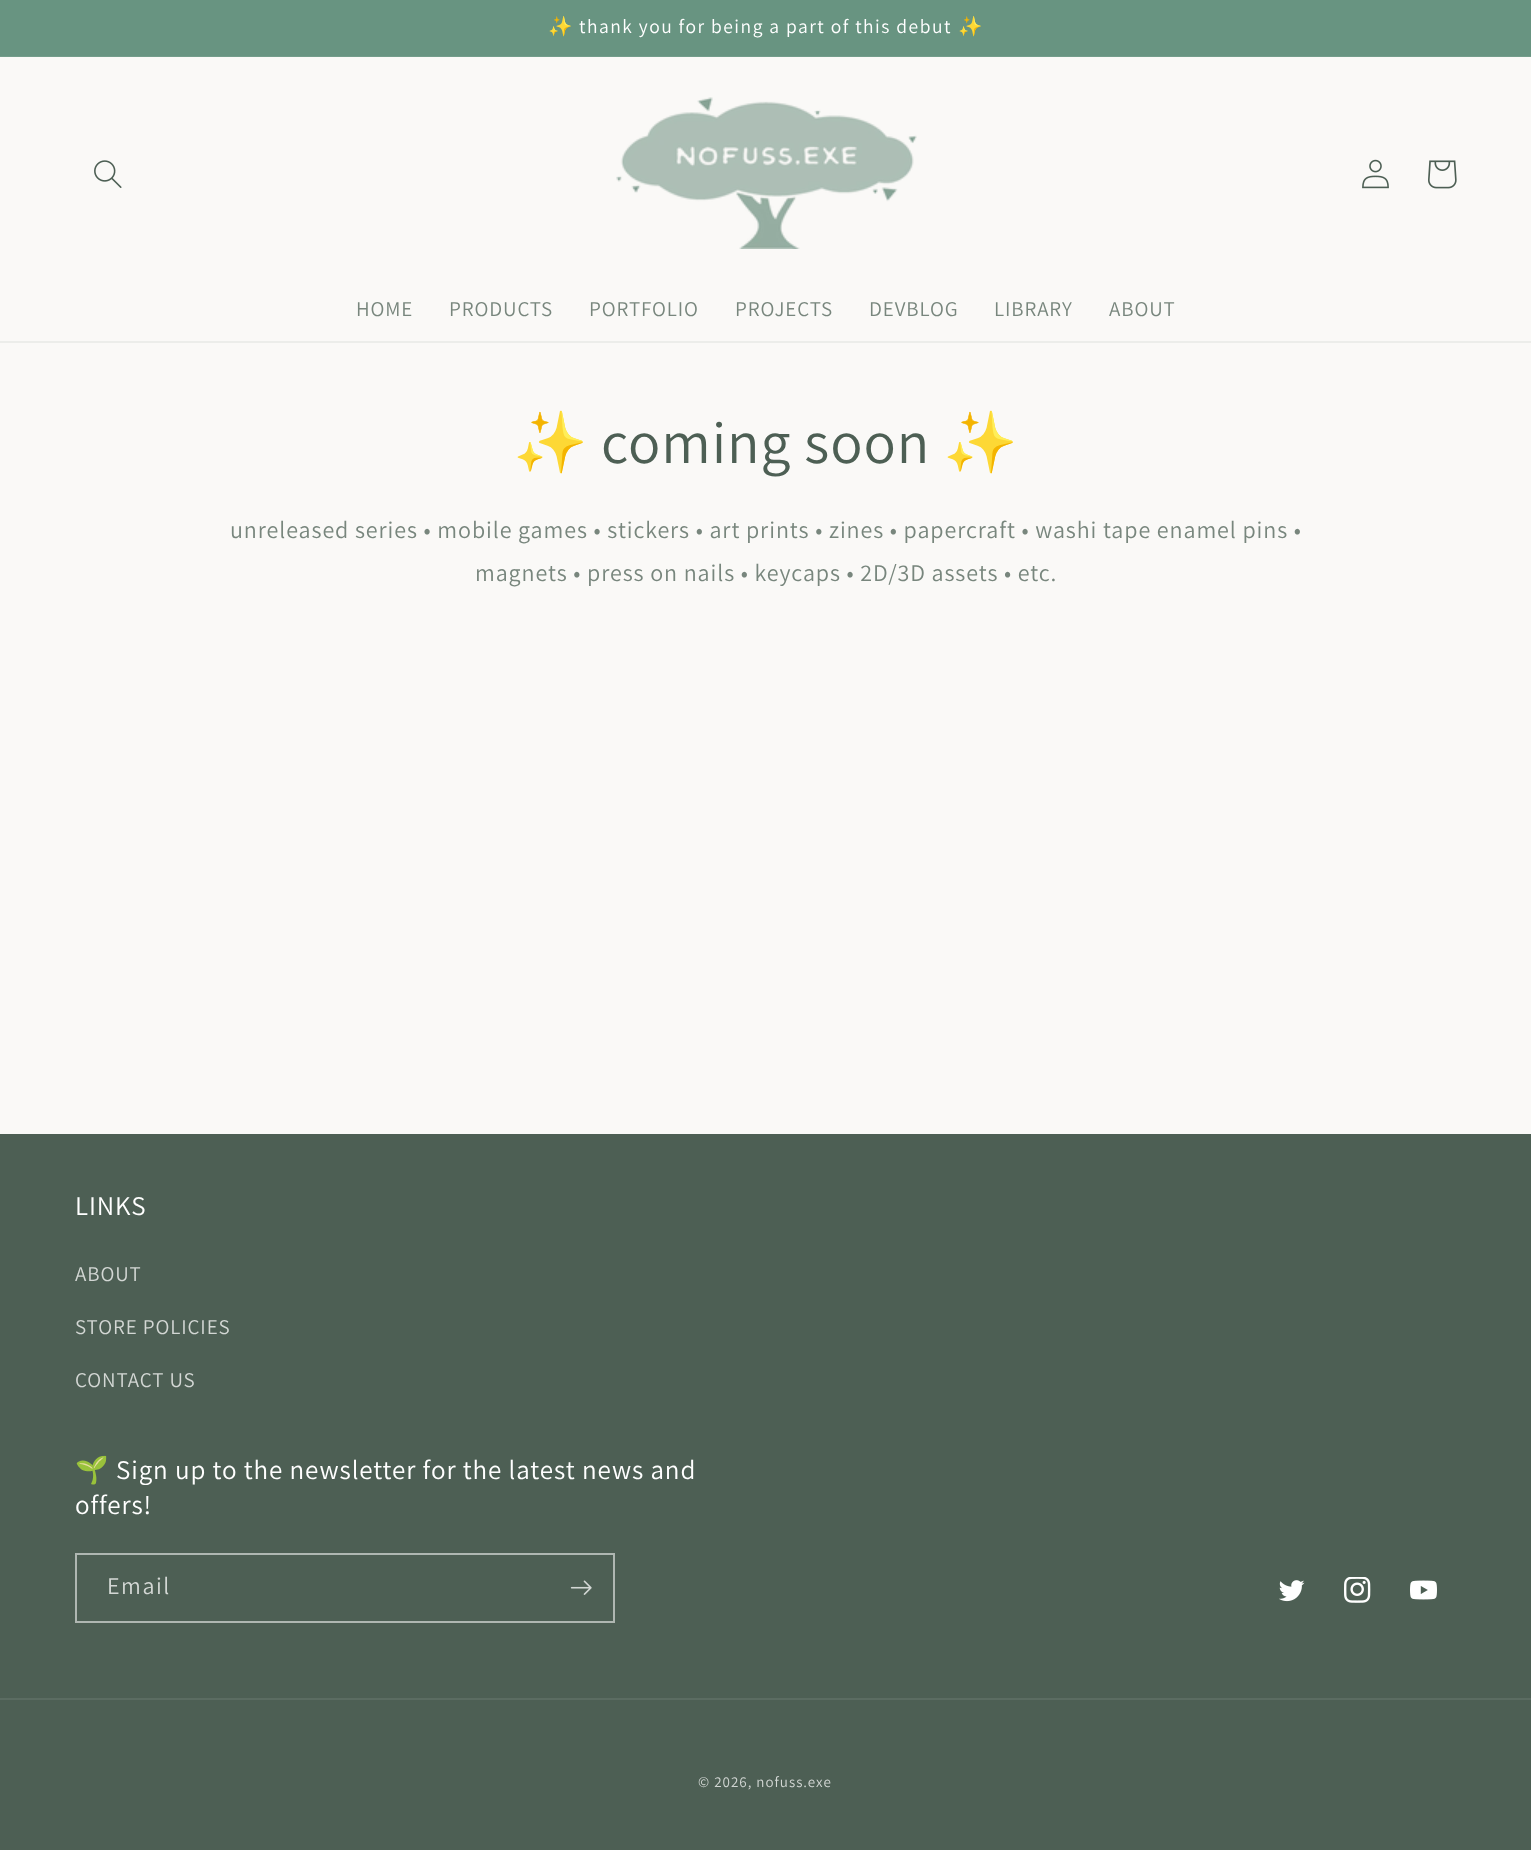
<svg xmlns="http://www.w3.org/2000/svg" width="1531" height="1850">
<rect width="100%" height="100%" fill="#faf9f7"/>
<rect width="1531" height="56" fill="#689481"/>
<rect y="56" width="1531" height="1" fill="#749d8b"/>
<text x="548" y="33" style="font-family:Noto Color Emoji;font-size:19.5px;letter-spacing:1.5px;fill:#fff">✨</text>
<text x="579" y="33" style="font-family:Assistant;font-size:19.5px;letter-spacing:1.5px;fill:#fff">thank you for being a part of this debut</text>
<text x="958" y="33" style="font-family:Noto Color Emoji;font-size:19.5px;letter-spacing:1.5px;fill:#fff">✨</text>
<rect y="341" width="1531" height="2" fill="#ecedea"/>
<image x="94" y="160" width="28" height="28" href="media/1.png"/>
<image x="616" y="97" width="301" height="152" href="media/2.png"/>
<image x="1362" y="159" width="27" height="30" href="media/3.png"/>
<image x="1428" y="160" width="29" height="29" href="media/4.png"/>
<text x="356" y="316" style="font-family:Assistant;font-size:21px;letter-spacing:0.9px;fill:#78867d">HOME</text>
<text x="449" y="316" style="font-family:Assistant;font-size:21px;letter-spacing:0.9px;fill:#78867d">PRODUCTS</text>
<text x="589" y="316" style="font-family:Assistant;font-size:21px;letter-spacing:0.9px;fill:#78867d">PORTFOLIO</text>
<text x="735" y="316" style="font-family:Assistant;font-size:21px;letter-spacing:0.9px;fill:#78867d">PROJECTS</text>
<text x="869" y="316" style="font-family:Assistant;font-size:21px;letter-spacing:0.9px;fill:#78867d">DEVBLOG</text>
<text x="994" y="316" style="font-family:Assistant;font-size:21px;letter-spacing:0.9px;fill:#78867d">LIBRARY</text>
<text x="1109" y="316" style="font-family:Assistant;font-size:21px;letter-spacing:0.9px;fill:#78867d">ABOUT</text>
<text x="513" y="463" style="font-family:Noto Color Emoji;font-size:60px;letter-spacing:0.9px;fill:#4d5f54">✨</text>
<text x="601" y="463" style="font-family:Assistant;font-size:60px;letter-spacing:0.9px;fill:#4d5f54">coming soon</text>
<text x="943" y="463" style="font-family:Noto Color Emoji;font-size:60px;letter-spacing:0.9px;fill:#4d5f54">✨</text>
<text x="230" y="538" style="font-family:Assistant;font-size:24px;letter-spacing:0.9px;fill:#78867d">unreleased series • mobile games • stickers • art prints • zines • papercraft • washi tape enamel pins •</text>
<text x="475" y="581" style="font-family:Assistant;font-size:24px;letter-spacing:0.9px;fill:#78867d">magnets • press on nails • keycaps • 2D/3D assets • etc.</text>
<rect y="1134" width="1531" height="716" fill="#4d5f54"/>
<text x="75" y="1215" style="font-family:Assistant;font-size:27px;letter-spacing:0.9px;fill:#fff">LINKS</text>
<text x="75" y="1281" style="font-family:Assistant;font-size:21px;letter-spacing:0.9px;fill:#d3d7d4">ABOUT</text>
<text x="75" y="1334" style="font-family:Assistant;font-size:21px;letter-spacing:0.9px;fill:#d3d7d4">STORE POLICIES</text>
<text x="75" y="1387" style="font-family:Assistant;font-size:21px;letter-spacing:0.9px;fill:#d3d7d4">CONTACT US</text>
<text x="75" y="1479" style="font-family:Noto Color Emoji;font-size:27px;letter-spacing:0.9px;fill:#fff">🌱</text>
<text x="116" y="1479" style="font-family:Assistant;font-size:27px;letter-spacing:0.9px;fill:#fff">Sign up to the newsletter for the latest news and</text>
<text x="75" y="1514" style="font-family:Assistant;font-size:27px;letter-spacing:0.9px;fill:#fff">offers!</text>
<rect x="76" y="1554" width="538" height="68" fill="none" stroke="#afb7b2" stroke-width="2"/>
<text x="107" y="1594" style="font-family:Assistant;font-size:24px;letter-spacing:1.5px;fill:#d3d7d4">Email</text>
<image x="570" y="1580" width="22" height="15" href="media/5.png"/>
<image x="1279" y="1580" width="26" height="22" href="media/6.png"/>
<image x="1344" y="1577" width="27" height="26" href="media/7.png"/>
<image x="1410" y="1580" width="27" height="20" href="media/8.png"/>
<rect y="1698" width="1531" height="2" fill="#5b6c62"/>
<text x="698" y="1787" style="font-family:Assistant;font-size:15px;letter-spacing:1px;fill:#d3d7d4">© 2026, nofuss.exe</text>
</svg>
